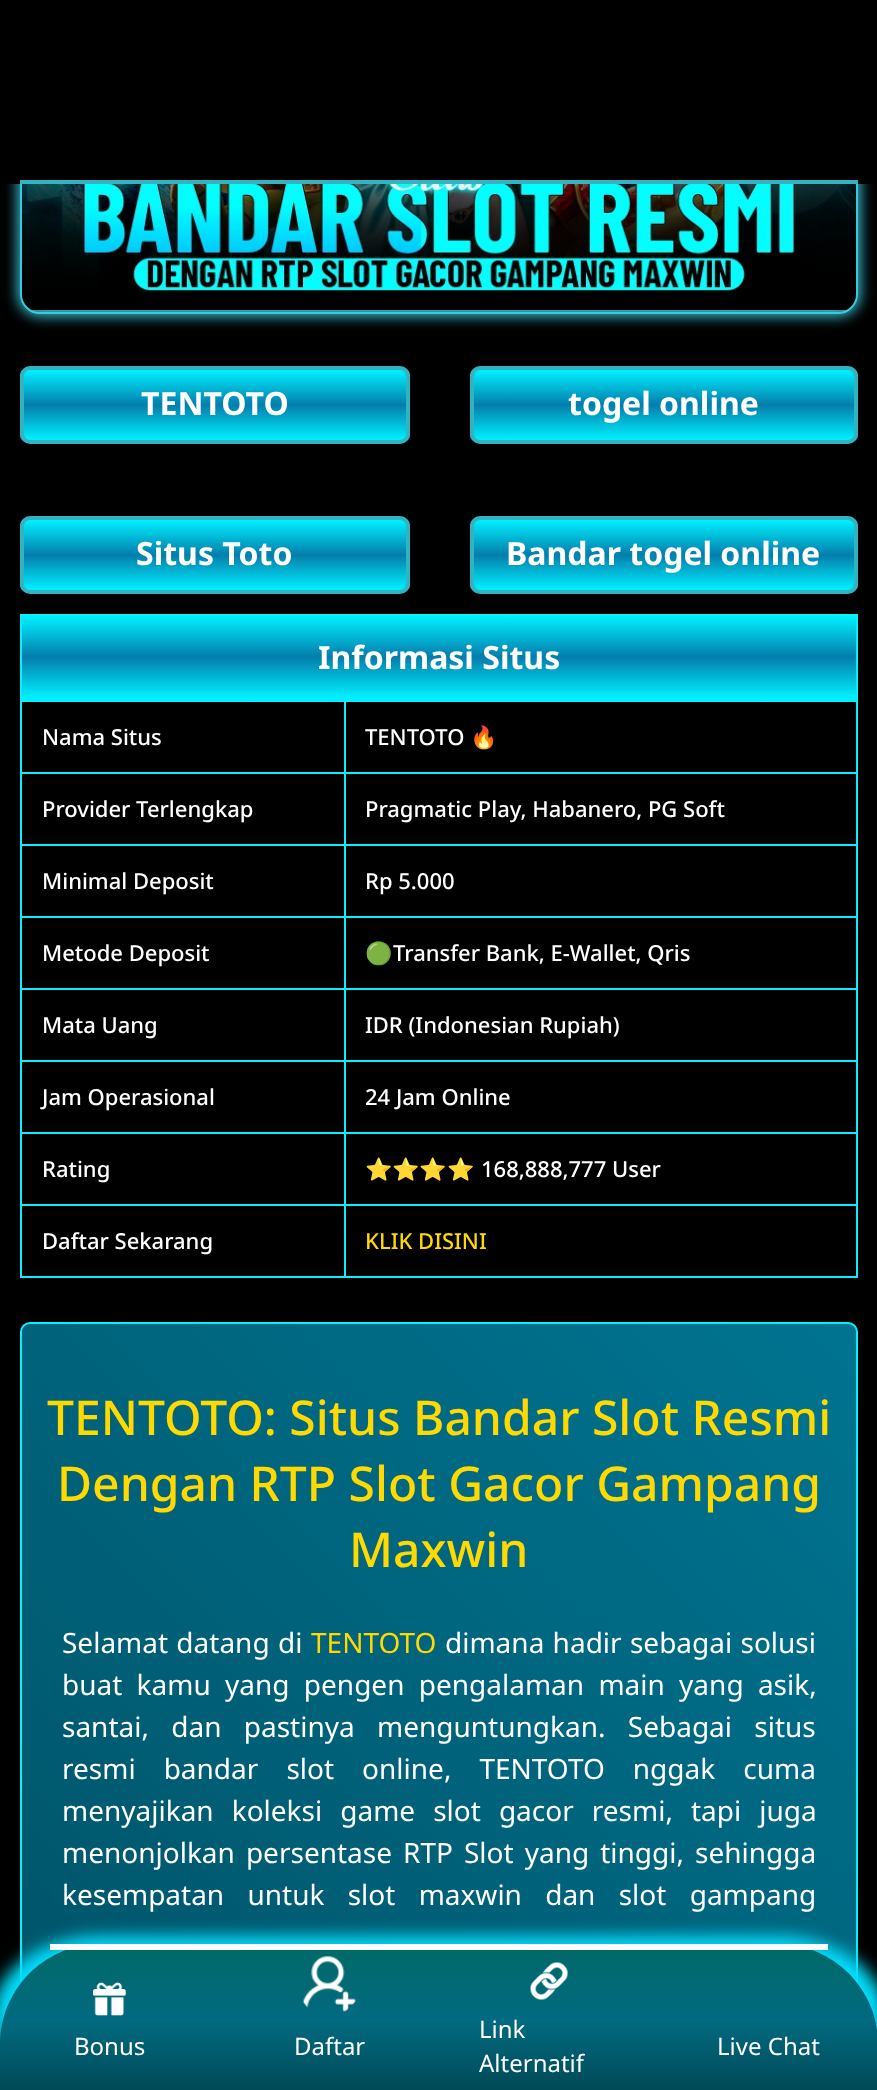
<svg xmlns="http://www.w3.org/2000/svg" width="877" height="2090">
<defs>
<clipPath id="clip1"><rect x="20" y="366" width="390" height="78" rx="10"/></clipPath>
<linearGradient id="g1" gradientUnits="userSpaceOnUse" x1="215" y1="370" x2="215" y2="440"><stop offset="0" stop-color="#00f1ff"/><stop offset="0.5" stop-color="#047dac"/><stop offset="1" stop-color="#00f1ff"/></linearGradient>
<clipPath id="clip2"><rect x="470" y="366" width="388" height="78" rx="10"/></clipPath>
<linearGradient id="g2" gradientUnits="userSpaceOnUse" x1="664" y1="370" x2="664" y2="440"><stop offset="0" stop-color="#00f1ff"/><stop offset="0.5" stop-color="#047dac"/><stop offset="1" stop-color="#00f1ff"/></linearGradient>
<clipPath id="clip3"><rect x="20" y="516" width="390" height="78" rx="10"/></clipPath>
<linearGradient id="g3" gradientUnits="userSpaceOnUse" x1="215" y1="520" x2="215" y2="590"><stop offset="0" stop-color="#00f1ff"/><stop offset="0.5" stop-color="#047dac"/><stop offset="1" stop-color="#00f1ff"/></linearGradient>
<clipPath id="clip4"><rect x="470" y="516" width="388" height="78" rx="10"/></clipPath>
<linearGradient id="g4" gradientUnits="userSpaceOnUse" x1="664" y1="520" x2="664" y2="590"><stop offset="0" stop-color="#00f1ff"/><stop offset="0.5" stop-color="#047dac"/><stop offset="1" stop-color="#00f1ff"/></linearGradient>
<linearGradient id="g5" gradientUnits="userSpaceOnUse" x1="440" y1="616" x2="440" y2="698"><stop offset="0" stop-color="#00f1ff"/><stop offset="0.5" stop-color="#047dac"/><stop offset="1" stop-color="#00f1ff"/></linearGradient>
<linearGradient id="g6" gradientUnits="userSpaceOnUse" x1="440" y1="698" x2="440" y2="780"><stop offset="0" stop-color="#00f1ff"/><stop offset="0.5" stop-color="#047dac"/><stop offset="1" stop-color="#00f1ff"/></linearGradient>
<clipPath id="clip5"><rect x="20" y="1322" width="838" height="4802" rx="10"/></clipPath>
<linearGradient id="g7" gradientUnits="userSpaceOnUse" x1="-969" y1="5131" x2="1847" y2="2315"><stop offset="0" stop-color="#000"/><stop offset="1" stop-color="#007491"/></linearGradient>
<clipPath id="clip6"><path d="M100 1944h678c55 0 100 45 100 100v46h-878v-46c0-55 45-100 100-100z"/></clipPath>
<linearGradient id="g8" gradientUnits="userSpaceOnUse" x1="439" y1="1950" x2="439" y2="2090"><stop offset="0" stop-color="#006969"/><stop offset="0.5" stop-color="#026a81"/><stop offset="1" stop-color="#004a57"/></linearGradient>
</defs>
<rect width="100%" height="100%" fill="#000"/>
<rect x="18" y="-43" width="842" height="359" rx="22" fill="#3acade" filter="blur(7px)"/>
<rect x="21" y="-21" width="836" height="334" rx="19" fill="none" stroke="#3acade" stroke-width="2"/>
<rect x="2" width="874" height="184" fill="#000"/>
<rect x="20" y="180" width="838" height="4" fill="#32b3c1"/>
<image x="22" y="184" width="834" height="126" href="media/1.png"/>
<g clip-path="url(#clip1)">
<rect x="20" y="370" width="390" height="70" fill="url(#g1)"/>
</g>
<rect x="22" y="368" width="386" height="74" rx="8" fill="none" stroke="#32b3c1" stroke-width="4"/>
<text x="141" y="415" style="font-family:Noto Sans;font-size:32px;font-weight:bold;fill:#fff">TENTOTO</text>
<g clip-path="url(#clip2)">
<rect x="470" y="370" width="388" height="70" fill="url(#g2)"/>
</g>
<rect x="472" y="368" width="384" height="74" rx="8" fill="none" stroke="#32b3c1" stroke-width="4"/>
<text x="568" y="415" style="font-family:Noto Sans;font-size:32px;font-weight:bold;fill:#fff">togel online</text>
<g clip-path="url(#clip3)">
<rect x="20" y="520" width="390" height="70" fill="url(#g3)"/>
</g>
<rect x="22" y="518" width="386" height="74" rx="8" fill="none" stroke="#32b3c1" stroke-width="4"/>
<text x="136" y="565" style="font-family:Noto Sans;font-size:32px;font-weight:bold;fill:#fff">Situs Toto</text>
<g clip-path="url(#clip4)">
<rect x="470" y="520" width="388" height="70" fill="url(#g4)"/>
</g>
<rect x="472" y="518" width="384" height="74" rx="8" fill="none" stroke="#32b3c1" stroke-width="4"/>
<text x="506" y="565" style="font-family:Noto Sans;font-size:32px;font-weight:bold;fill:#fff">Bandar togel online</text>
<rect x="22" y="616" width="834" height="82" fill="url(#g5)"/>
<rect x="22" y="698" width="836" height="2" fill="url(#g6)"/>
<rect x="20" y="614" width="838" height="2" fill="#04f1fd"/>
<rect x="344" y="700" width="514" height="2" fill="#04f1fd"/>
<rect x="344" y="772" width="514" height="2" fill="#04f1fd"/>
<rect x="344" y="844" width="514" height="2" fill="#04f1fd"/>
<rect x="344" y="916" width="514" height="2" fill="#04f1fd"/>
<rect x="344" y="988" width="514" height="2" fill="#04f1fd"/>
<rect x="344" y="1060" width="514" height="2" fill="#04f1fd"/>
<rect x="344" y="1132" width="514" height="2" fill="#04f1fd"/>
<rect x="344" y="1204" width="514" height="2" fill="#04f1fd"/>
<rect x="856" y="1204" width="2" height="74" fill="#04f1fd"/>
<rect x="856" y="1132" width="2" height="74" fill="#04f1fd"/>
<rect x="856" y="1060" width="2" height="74" fill="#04f1fd"/>
<rect x="856" y="988" width="2" height="74" fill="#04f1fd"/>
<rect x="856" y="916" width="2" height="74" fill="#04f1fd"/>
<rect x="856" y="844" width="2" height="74" fill="#04f1fd"/>
<rect x="856" y="772" width="2" height="74" fill="#04f1fd"/>
<rect x="856" y="700" width="2" height="74" fill="#04f1fd"/>
<rect x="856" y="614" width="2" height="88" fill="#04f1fd"/>
<rect x="344" y="1276" width="514" height="2" fill="#04f1fd"/>
<rect x="344" y="1204" width="2" height="74" fill="#04f1fd"/>
<rect x="20" y="1204" width="326" height="2" fill="#04f1fd"/>
<rect x="344" y="1132" width="2" height="74" fill="#04f1fd"/>
<rect x="20" y="1132" width="326" height="2" fill="#04f1fd"/>
<rect x="344" y="1060" width="2" height="74" fill="#04f1fd"/>
<rect x="20" y="1060" width="326" height="2" fill="#04f1fd"/>
<rect x="344" y="988" width="2" height="74" fill="#04f1fd"/>
<rect x="20" y="988" width="326" height="2" fill="#04f1fd"/>
<rect x="344" y="916" width="2" height="74" fill="#04f1fd"/>
<rect x="20" y="916" width="326" height="2" fill="#04f1fd"/>
<rect x="344" y="844" width="2" height="74" fill="#04f1fd"/>
<rect x="20" y="844" width="326" height="2" fill="#04f1fd"/>
<rect x="344" y="772" width="2" height="74" fill="#04f1fd"/>
<rect x="20" y="772" width="326" height="2" fill="#04f1fd"/>
<rect x="344" y="700" width="2" height="74" fill="#04f1fd"/>
<rect x="20" y="700" width="326" height="2" fill="#04f1fd"/>
<rect x="20" y="1276" width="326" height="2" fill="#04f1fd"/>
<rect x="20" y="1204" width="2" height="74" fill="#04f1fd"/>
<rect x="20" y="1132" width="2" height="74" fill="#04f1fd"/>
<rect x="20" y="1060" width="2" height="74" fill="#04f1fd"/>
<rect x="20" y="988" width="2" height="74" fill="#04f1fd"/>
<rect x="20" y="916" width="2" height="74" fill="#04f1fd"/>
<rect x="20" y="844" width="2" height="74" fill="#04f1fd"/>
<rect x="20" y="772" width="2" height="74" fill="#04f1fd"/>
<rect x="20" y="700" width="2" height="74" fill="#04f1fd"/>
<rect x="20" y="614" width="2" height="88" fill="#04f1fd"/>
<text x="318" y="669" style="font-family:Noto Sans;font-size:32px;font-weight:bold;fill:#fff">Informasi Situs</text>
<text x="42" y="745" style="font-family:Noto Sans;font-size:22px;font-weight:500;fill:#fff">Nama Situs</text>
<text x="365" y="745" style="font-family:Noto Sans;font-size:22px;font-weight:500;fill:#fff">TENTOTO</text>
<text x="470" y="745" style="font-family:Noto Color Emoji;font-size:22px;fill:#fff">🔥</text>
<text x="42" y="817" style="font-family:Noto Sans;font-size:22px;font-weight:500;fill:#fff">Provider Terlengkap</text>
<text x="365" y="817" style="font-family:Noto Sans;font-size:22px;font-weight:500;fill:#fff">Pragmatic Play, Habanero, PG Soft</text>
<text x="42" y="889" style="font-family:Noto Sans;font-size:22px;font-weight:500;fill:#fff">Minimal Deposit</text>
<text x="365" y="889" style="font-family:Noto Sans;font-size:22px;font-weight:500;fill:#fff">Rp 5.000</text>
<text x="42" y="961" style="font-family:Noto Sans;font-size:22px;font-weight:500;fill:#fff">Metode Deposit</text>
<text x="365" y="961" style="font-family:Noto Color Emoji;font-size:22px;fill:#fff">🟢</text>
<text x="393" y="961" style="font-family:Noto Sans;font-size:22px;font-weight:500;fill:#fff">Transfer Bank, E-Wallet, Qris</text>
<text x="42" y="1033" style="font-family:Noto Sans;font-size:22px;font-weight:500;fill:#fff">Mata Uang</text>
<text x="365" y="1033" style="font-family:Noto Sans;font-size:22px;font-weight:500;fill:#fff">IDR (Indonesian Rupiah)</text>
<text x="42" y="1105" style="font-family:Noto Sans;font-size:22px;font-weight:500;fill:#fff">Jam Operasional</text>
<text x="365" y="1105" style="font-family:Noto Sans;font-size:22px;font-weight:500;fill:#fff">24 Jam Online</text>
<text x="42" y="1177" style="font-family:Noto Sans;font-size:22px;font-weight:500;fill:#fff">Rating</text>
<text x="365" y="1177" style="font-family:Noto Color Emoji;font-size:22px;fill:#fff">⭐⭐⭐⭐</text>
<text x="481" y="1177" style="font-family:Noto Sans;font-size:22px;font-weight:500;fill:#fff">168,888,777 User</text>
<text x="42" y="1249" style="font-family:Noto Sans;font-size:22px;font-weight:500;fill:#fff">Daftar Sekarang</text>
<text x="365" y="1249" style="font-family:Noto Sans;font-size:22px;font-weight:500;fill:#ffd900">KLIK DISINI</text>
<g clip-path="url(#clip5)">
<rect x="22" y="1324" width="834" height="658" fill="url(#g7)"/>
</g>
<rect x="21" y="1323" width="836" height="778" rx="9" fill="none" stroke="#04f1fd" stroke-width="2"/>
<text x="47" y="1435" style="font-family:Noto Sans;font-size:48px;font-weight:500;fill:#ffd900">TENTOTO: Situs Bandar Slot Resmi</text>
<text x="57" y="1501" style="font-family:Noto Sans;font-size:48px;font-weight:500;fill:#ffd900">Dengan RTP Slot Gacor Gampang</text>
<text x="349" y="1567" style="font-family:Noto Sans;font-size:48px;font-weight:500;fill:#ffd900">Maxwin</text>
<text x="62" y="1653" word-spacing="1" style="font-family:Noto Sans;font-size:28px;fill:#fff">Selamat datang di</text>
<text x="311" y="1653" style="font-family:Noto Sans;font-size:28px;fill:#ffd900">TENTOTO</text>
<text x="445" y="1653" word-spacing="1" style="font-family:Noto Sans;font-size:28px;fill:#fff">dimana hadir sebagai solusi</text>
<text x="62" y="1695" word-spacing="7" style="font-family:Noto Sans;font-size:28px;fill:#fff">buat kamu yang pengen pengalaman main yang asik,</text>
<text x="62" y="1737" word-spacing="15" style="font-family:Noto Sans;font-size:28px;fill:#fff">santai, dan pastinya menguntungkan. Sebagai situs</text>
<text x="62" y="1779" word-spacing="20.75" style="font-family:Noto Sans;font-size:28px;fill:#fff">resmi bandar slot online, TENTOTO nggak cuma</text>
<text x="62" y="1821" word-spacing="10.75" style="font-family:Noto Sans;font-size:28px;fill:#fff">menyajikan koleksi game slot gacor resmi, tapi juga</text>
<text x="62" y="1863" word-spacing="3.75" style="font-family:Noto Sans;font-size:28px;fill:#fff">menonjolkan persentase RTP Slot yang tinggi, sehingga</text>
<text x="62" y="1905" word-spacing="16" style="font-family:Noto Sans;font-size:28px;fill:#fff">kesempatan untuk slot maxwin dan slot gampang</text>
<rect x="-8" y="1936" width="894" height="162" rx="108" fill="#01ddfa" filter="blur(8px)"/>
<g clip-path="url(#clip6)">
<rect y="1950" width="877" height="140" fill="url(#g8)"/>
</g>
<rect x="50" y="1944" width="778" height="6" fill="#fff"/>
<image x="92" y="1982" width="34" height="34" href="media/2.png"/>
<text x="74" y="2055" style="font-family:Noto Sans;font-size:24px;fill:#fff">Bonus</text>
<image x="302" y="1956" width="54" height="56" href="media/3.png"/>
<text x="294" y="2055" style="font-family:Noto Sans;font-size:24px;fill:#fff">Daftar</text>
<image x="530" y="1962" width="38" height="38" href="media/4.png"/>
<text x="479" y="2038" style="font-family:Noto Sans;font-size:24px;fill:#fff">Link</text>
<text x="479" y="2072" style="font-family:Noto Sans;font-size:24px;fill:#fff">Alternatif</text>
<text x="717" y="2055" style="font-family:Noto Sans;font-size:24px;fill:#fff">Live Chat</text>
</svg>
